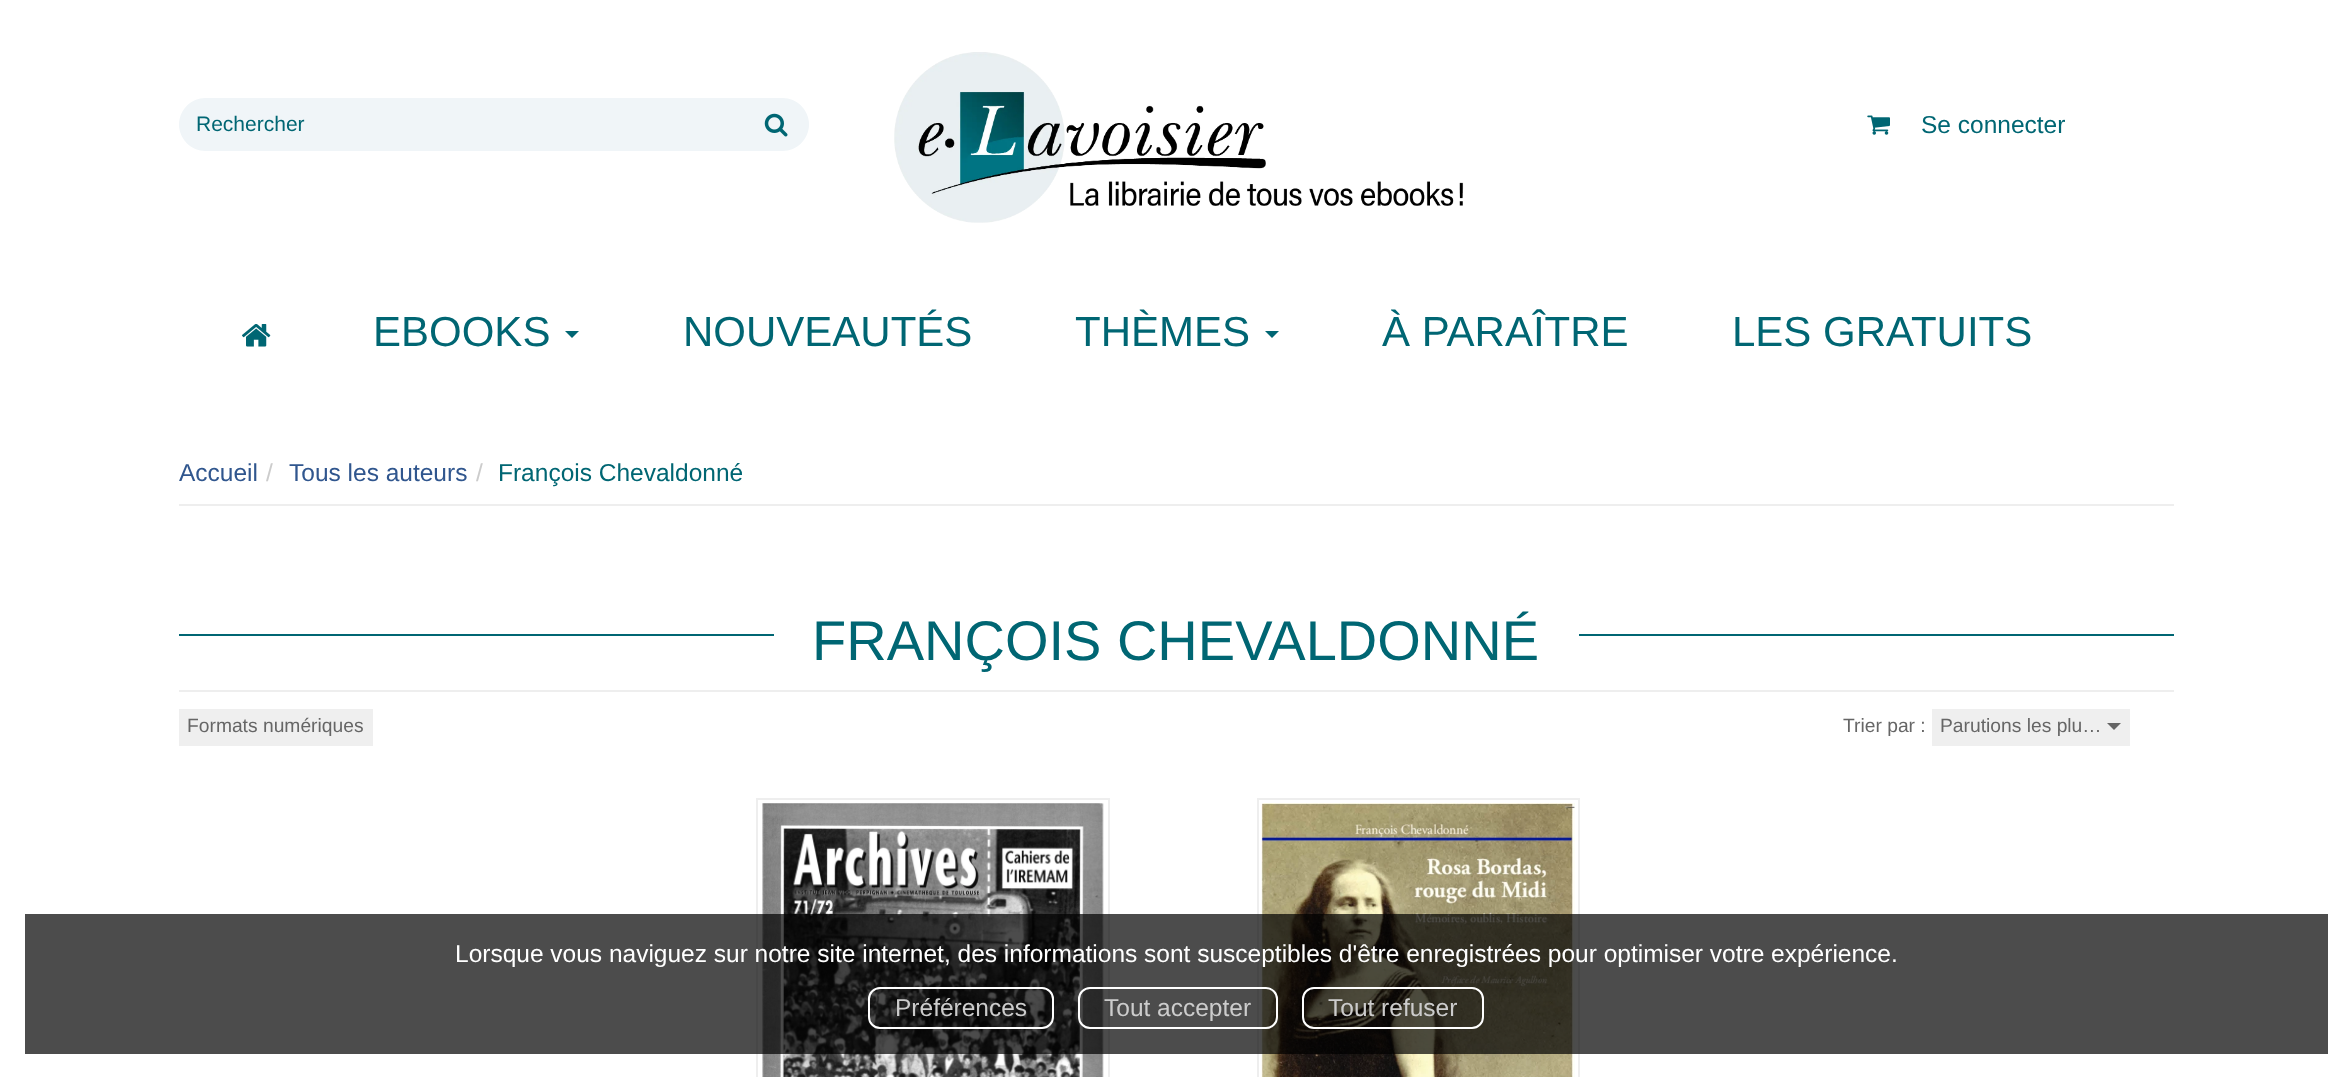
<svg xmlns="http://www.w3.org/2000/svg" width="2352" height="1077">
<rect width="100%" height="100%" fill="#fff"/>
<path d="M205.5 98h538.5v53h-538.5c-14.5 0-26.5-12-26.5-26.5c0-14.5 12-26.5 26.5-26.5z" fill="#f0f5f8"/>
<text x="196" y="131" style="font-family:Liberation Sans;font-size:21px;fill:#006673">Rechercher</text>
<path d="M744 98h38.5c14.5 0 26.5 12 26.5 26.5c0 14.5-12 26.5-26.5 26.5h-38.5z" fill="#f0f5f8"/>
<image x="764" y="113" width="24" height="24" href="media/1.png"/>
<image x="894" y="52" width="570" height="171" href="media/2.png"/>
<image x="1867" y="115" width="23" height="20" href="media/3.png"/>
<text x="1921" y="133" style="font-family:Liberation Sans;font-size:24.5px;fill:#006673">Se connecter</text>
<image x="242" y="324" width="29" height="23" href="media/4.png"/>
<text x="373" y="346" style="font-family:Liberation Sans;font-size:42px;fill:#006673">EBOOKS</text>
<path d="M565 331h14l-7 7z" fill="#006673"/>
<text x="683" y="346" style="font-family:Liberation Sans;font-size:42px;fill:#006673">NOUVEAUTÉS</text>
<text x="1075" y="346" style="font-family:Liberation Sans;font-size:42px;fill:#006673">THÈMES</text>
<path d="M1265 331h14l-7 7z" fill="#006673"/>
<text x="1382" y="346" style="font-family:Liberation Sans;font-size:42px;fill:#006673">À PARAÎTRE</text>
<text x="1732" y="346" style="font-family:Liberation Sans;font-size:42px;fill:#006673">LES GRATUITS</text>
<rect x="179" y="504" width="1995" height="2" fill="#eee"/>
<text x="179" y="481" style="font-family:Liberation Sans;font-size:24.5px;fill:#30568e">Accueil</text>
<text x="266" y="481" style="font-family:Liberation Sans;font-size:24.5px;fill:#ccc">/</text>
<text x="289" y="481" style="font-family:Liberation Sans;font-size:24.5px;fill:#30568e">Tous les auteurs</text>
<text x="476" y="481" style="font-family:Liberation Sans;font-size:24.5px;fill:#ccc">/</text>
<text x="498" y="481" style="font-family:Liberation Sans;font-size:24.5px;fill:#006673">François Chevaldonné</text>
<rect x="179" y="634" width="595" height="2" fill="#006673"/>
<text x="812" y="660" style="font-family:Liberation Sans;font-size:56px;fill:#006673">FRANÇOIS CHEVALDONNÉ</text>
<rect x="1579" y="634" width="595" height="2" fill="#006673"/>
<rect x="179" y="690" width="1995" height="2" fill="#eee"/>
<rect x="179" y="709" width="194" height="37" fill="#efefef"/>
<text x="187" y="732" style="font-family:Liberation Sans;font-size:19.25px;fill:#666">Formats numériques</text>
<text x="1843" y="732" style="font-family:Liberation Sans;font-size:19.25px;fill:#666">Trier par :</text>
<rect x="1932" y="709" width="198" height="37" fill="#efefef"/>
<text x="1940" y="732" style="font-family:Liberation Sans;font-size:19.25px;fill:#666">Parutions les plu…</text>
<path d="M2107 723h14l-7 7z" fill="#666"/>
<rect x="757" y="799" width="352" height="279" fill="none" stroke="#eee" stroke-width="2"/>
<image x="762" y="803" width="342" height="274" href="media/5.png"/>
<rect x="1258" y="799" width="321" height="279" fill="none" stroke="#eee" stroke-width="2"/>
<image x="1261" y="803" width="314" height="274" href="media/6.png"/>
<rect x="25" y="914" width="2303" height="140" fill="#000000b3"/>
<text x="455" y="962" style="font-family:Liberation Sans;font-size:24.5px;fill:#fff">Lorsque vous naviguez sur notre site internet, des informations sont susceptibles d'être enregistrées pour optimiser votre expérience.</text>
<rect x="869" y="988" width="184" height="40" rx="11" fill="none" stroke="#fff" stroke-width="2"/>
<text x="895" y="1016" style="font-family:Liberation Sans;font-size:24.5px;fill:#ccc">Préférences</text>
<rect x="1079" y="988" width="198" height="40" rx="11" fill="none" stroke="#fff" stroke-width="2"/>
<text x="1104" y="1016" style="font-family:Liberation Sans;font-size:24.5px;fill:#ccc">Tout accepter</text>
<rect x="1303" y="988" width="180" height="40" rx="11" fill="none" stroke="#fff" stroke-width="2"/>
<text x="1328" y="1016" style="font-family:Liberation Sans;font-size:24.5px;fill:#ccc">Tout refuser</text>
</svg>
